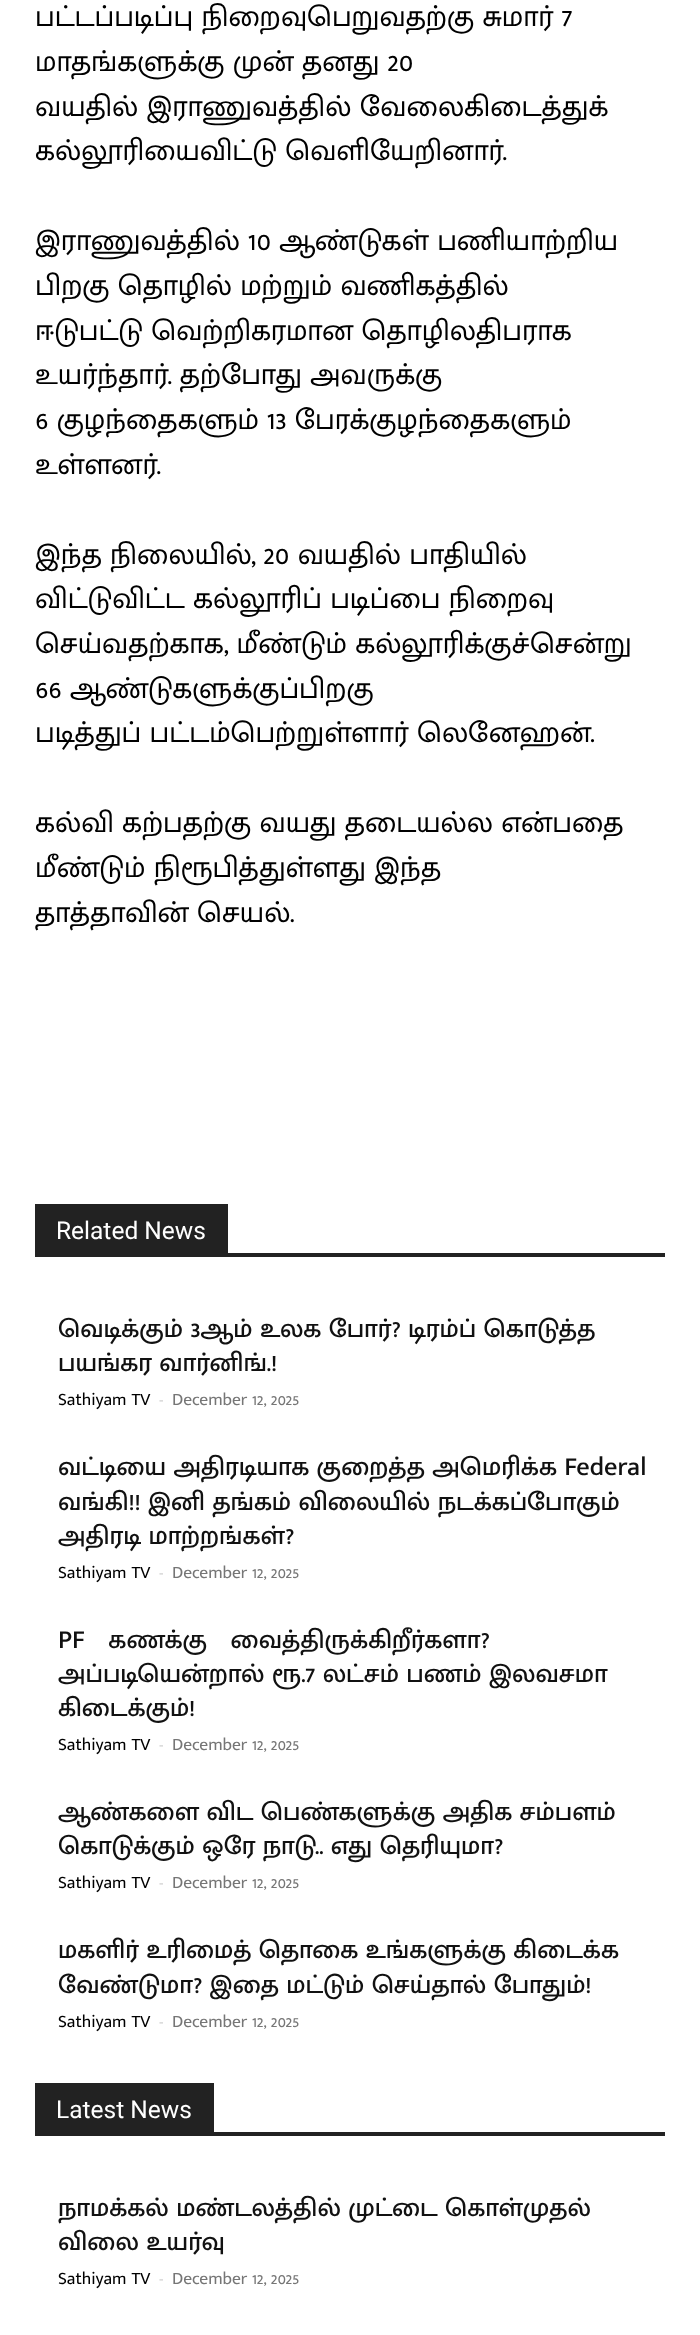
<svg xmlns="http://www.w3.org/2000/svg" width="700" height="2335">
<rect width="100%" height="100%" fill="#fff"/>
<text x="35" y="26" style="font-family:Mukta Malar;font-size:29.75px;fill:#000">பட்டப்படிப்பு நிறைவுபெறுவதற்கு சுமார் 7</text>
<text x="35" y="71" style="font-family:Mukta Malar;font-size:29.75px;fill:#000">மாதங்களுக்கு முன் தனது 20</text>
<text x="35" y="116" style="font-family:Mukta Malar;font-size:29.75px;fill:#000">வயதில் இராணுவத்தில் வேலைகிடைத்துக்</text>
<text x="35" y="160" style="font-family:Mukta Malar;font-size:29.75px;fill:#000">கல்லூரியைவிட்டு வெளியேறினார்.</text>
<text x="35" y="250" style="font-family:Mukta Malar;font-size:29.75px;fill:#000">இராணுவத்தில் 10 ஆண்டுகள் பணியாற்றிய</text>
<text x="35" y="295" style="font-family:Mukta Malar;font-size:29.75px;fill:#000">பிறகு தொழில் மற்றும் வணிகத்தில்</text>
<text x="35" y="340" style="font-family:Mukta Malar;font-size:29.75px;fill:#000">ஈடுபட்டு வெற்றிகரமான தொழிலதிபராக</text>
<text x="35" y="384" style="font-family:Mukta Malar;font-size:29.75px;fill:#000">உயர்ந்தார். தற்போது அவருக்கு</text>
<text x="35" y="429" style="font-family:Mukta Malar;font-size:29.75px;fill:#000">6 குழந்தைகளும் 13 பேரக்குழந்தைகளும்</text>
<text x="35" y="474" style="font-family:Mukta Malar;font-size:29.75px;fill:#000">உள்ளனர்.</text>
<text x="35" y="564" style="font-family:Mukta Malar;font-size:29.75px;fill:#000">இந்த நிலையில், 20 வயதில் பாதியில்</text>
<text x="35" y="608" style="font-family:Mukta Malar;font-size:29.75px;fill:#000">விட்டுவிட்ட கல்லூரிப் படிப்பை நிறைவு</text>
<text x="35" y="653" style="font-family:Mukta Malar;font-size:29.75px;fill:#000">செய்வதற்காக, மீண்டும் கல்லூரிக்குச்சென்று</text>
<text x="35" y="698" style="font-family:Mukta Malar;font-size:29.75px;fill:#000">66 ஆண்டுகளுக்குப்பிறகு</text>
<text x="35" y="742" style="font-family:Mukta Malar;font-size:29.75px;fill:#000">படித்துப் பட்டம்பெற்றுள்ளார் லெனேஹன்.</text>
<text x="35" y="832" style="font-family:Mukta Malar;font-size:29.75px;fill:#000">கல்வி கற்பதற்கு வயது தடையல்ல என்பதை</text>
<text x="35" y="877" style="font-family:Mukta Malar;font-size:29.75px;fill:#000">மீண்டும் நிரூபித்துள்ளது இந்த</text>
<text x="35" y="922" style="font-family:Mukta Malar;font-size:29.75px;fill:#000">தாத்தாவின் செயல்.</text>
<rect x="35" y="1253" width="630" height="4" fill="#222"/>
<rect x="35" y="1204" width="193" height="49" fill="#222"/>
<text x="56" y="1239" style="font-family:Roboto;font-size:24.5px;fill:#fff">Related News</text>
<text x="58" y="1337" style="font-family:Mukta Malar;font-size:26.25px;font-weight:500;fill:#111">வெடிக்கும் 3ஆம் உலக போர்? டிரம்ப் கொடுத்த</text>
<text x="58" y="1371" style="font-family:Mukta Malar;font-size:26.25px;font-weight:500;fill:#111">பயங்கர வார்னிங்.!</text>
<text x="58" y="1405" style="font-family:Mukta Malar;font-size:17.5px;fill:#000">Sathiyam TV</text>
<text x="159" y="1405" style="font-family:Mukta Malar;font-size:17.5px;fill:#ccc">-</text>
<text x="172" y="1405" style="font-family:Mukta Malar;font-size:17.5px;fill:#767676">December 12, 2025</text>
<text x="58" y="1475" style="font-family:Mukta Malar;font-size:26.25px;font-weight:500;fill:#111">வட்டியை அதிரடியாக குறைத்த அமெரிக்க Federal</text>
<text x="58" y="1510" style="font-family:Mukta Malar;font-size:26.25px;font-weight:500;fill:#111">வங்கி!! இனி தங்கம் விலையில் நடக்கப்போகும்</text>
<text x="58" y="1544" style="font-family:Mukta Malar;font-size:26.25px;font-weight:500;fill:#111">அதிரடி மாற்றங்கள்?</text>
<text x="58" y="1578" style="font-family:Mukta Malar;font-size:17.5px;fill:#000">Sathiyam TV</text>
<text x="159" y="1578" style="font-family:Mukta Malar;font-size:17.5px;fill:#ccc">-</text>
<text x="172" y="1578" style="font-family:Mukta Malar;font-size:17.5px;fill:#767676">December 12, 2025</text>
<text x="58" y="1648" word-spacing="16" style="font-family:Mukta Malar;font-size:26.25px;font-weight:500;fill:#111">PF கணக்கு வைத்திருக்கிறீர்களா?</text>
<text x="58" y="1682" style="font-family:Mukta Malar;font-size:26.25px;font-weight:500;fill:#111">அப்படியென்றால் ரூ.7 லட்சம் பணம் இலவசமா</text>
<text x="58" y="1716" style="font-family:Mukta Malar;font-size:26.25px;font-weight:500;fill:#111">கிடைக்கும்!</text>
<text x="58" y="1750" style="font-family:Mukta Malar;font-size:17.5px;fill:#000">Sathiyam TV</text>
<text x="159" y="1750" style="font-family:Mukta Malar;font-size:17.5px;fill:#ccc">-</text>
<text x="172" y="1750" style="font-family:Mukta Malar;font-size:17.5px;fill:#767676">December 12, 2025</text>
<text x="58" y="1820" style="font-family:Mukta Malar;font-size:26.25px;font-weight:500;fill:#111">ஆண்களை விட பெண்களுக்கு அதிக சம்பளம்</text>
<text x="58" y="1854" style="font-family:Mukta Malar;font-size:26.25px;font-weight:500;fill:#111">கொடுக்கும் ஒரே நாடு.. எது தெரியுமா?</text>
<text x="58" y="1888" style="font-family:Mukta Malar;font-size:17.5px;fill:#000">Sathiyam TV</text>
<text x="159" y="1888" style="font-family:Mukta Malar;font-size:17.5px;fill:#ccc">-</text>
<text x="172" y="1888" style="font-family:Mukta Malar;font-size:17.5px;fill:#767676">December 12, 2025</text>
<text x="58" y="1958" style="font-family:Mukta Malar;font-size:26.25px;font-weight:500;fill:#111">மகளிர் உரிமைத் தொகை உங்களுக்கு கிடைக்க</text>
<text x="58" y="1993" style="font-family:Mukta Malar;font-size:26.25px;font-weight:500;fill:#111">வேண்டுமா? இதை மட்டும் செய்தால் போதும்!</text>
<text x="58" y="2027" style="font-family:Mukta Malar;font-size:17.5px;fill:#000">Sathiyam TV</text>
<text x="159" y="2027" style="font-family:Mukta Malar;font-size:17.5px;fill:#ccc">-</text>
<text x="172" y="2027" style="font-family:Mukta Malar;font-size:17.5px;fill:#767676">December 12, 2025</text>
<rect x="35" y="2132" width="630" height="4" fill="#222"/>
<rect x="35" y="2083" width="179" height="49" fill="#222"/>
<text x="56" y="2118" style="font-family:Roboto;font-size:24.5px;fill:#fff">Latest News</text>
<text x="58" y="2216" style="font-family:Mukta Malar;font-size:26.25px;font-weight:500;fill:#111">நாமக்கல் மண்டலத்தில் முட்டை கொள்முதல்</text>
<text x="58" y="2250" style="font-family:Mukta Malar;font-size:26.25px;font-weight:500;fill:#111">விலை உயர்வு</text>
<text x="58" y="2284" style="font-family:Mukta Malar;font-size:17.5px;fill:#000">Sathiyam TV</text>
<text x="159" y="2284" style="font-family:Mukta Malar;font-size:17.5px;fill:#ccc">-</text>
<text x="172" y="2284" style="font-family:Mukta Malar;font-size:17.5px;fill:#767676">December 12, 2025</text>
</svg>
